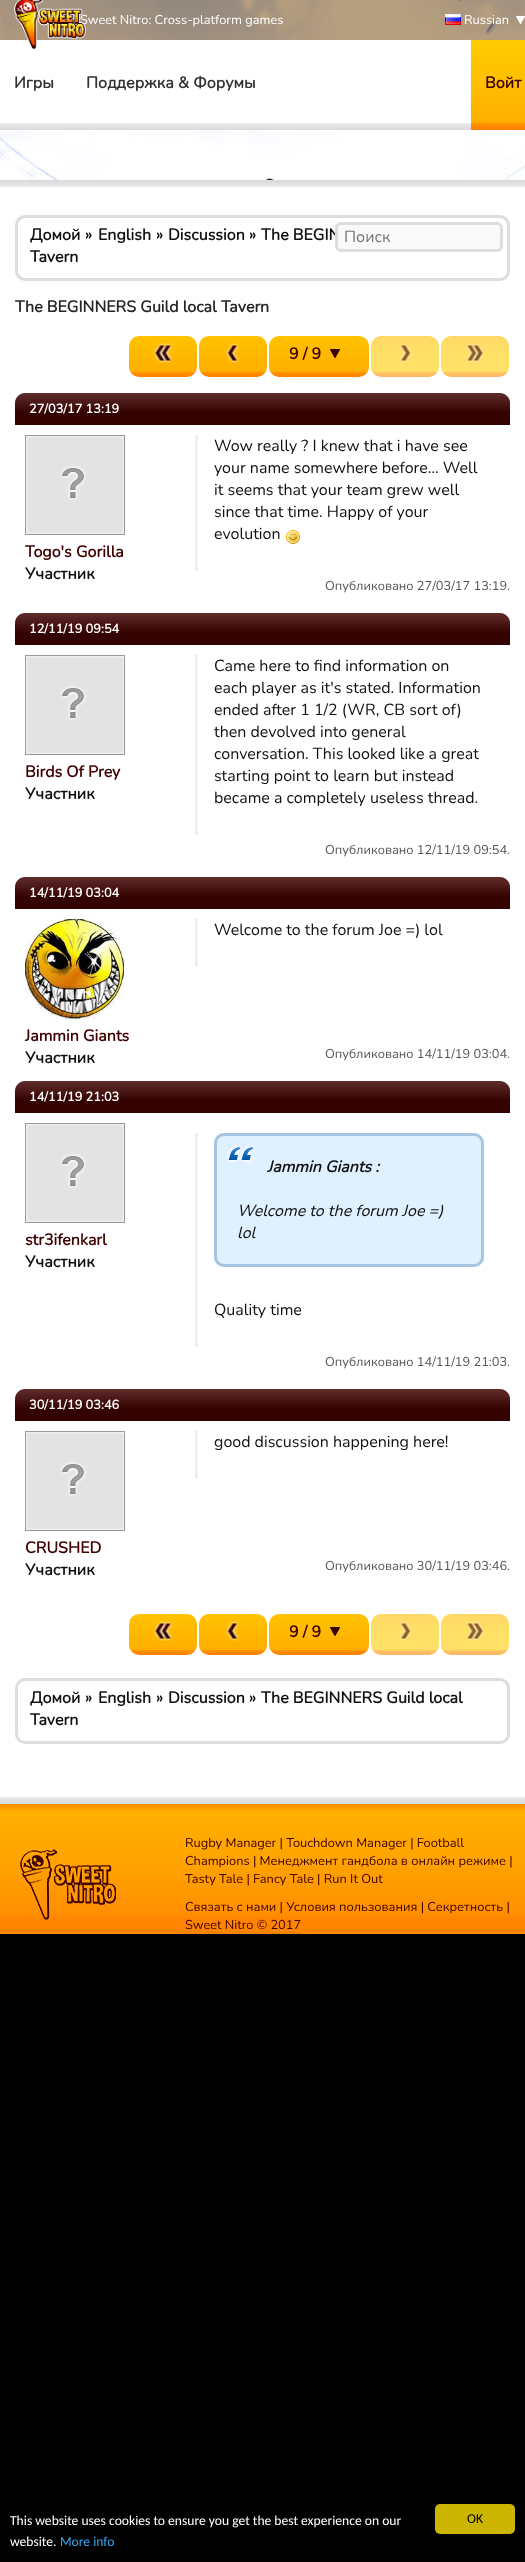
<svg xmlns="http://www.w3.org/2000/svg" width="525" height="2562">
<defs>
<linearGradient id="g1" gradientUnits="userSpaceOnUse" x1="263" y1="393" x2="263" y2="425"><stop offset="0" stop-color="#602c2c"/><stop offset="0.62" stop-color="#350202"/></linearGradient>
<linearGradient id="g2" gradientUnits="userSpaceOnUse" x1="263" y1="613" x2="263" y2="645"><stop offset="0" stop-color="#602c2c"/><stop offset="0.62" stop-color="#350202"/></linearGradient>
<linearGradient id="g3" gradientUnits="userSpaceOnUse" x1="263" y1="877" x2="263" y2="909"><stop offset="0" stop-color="#602c2c"/><stop offset="0.62" stop-color="#350202"/></linearGradient>
<linearGradient id="g4" gradientUnits="userSpaceOnUse" x1="263" y1="1081" x2="263" y2="1113"><stop offset="0" stop-color="#602c2c"/><stop offset="0.62" stop-color="#350202"/></linearGradient>
<linearGradient id="g5" gradientUnits="userSpaceOnUse" x1="263" y1="1389" x2="263" y2="1421"><stop offset="0" stop-color="#602c2c"/><stop offset="0.62" stop-color="#350202"/></linearGradient>
</defs>
<rect width="100%" height="100%" fill="#000"/>
<image x="0" y="0" width="525" height="180" href="media/1.png"/>
<rect width="525" height="40" fill="#6d400080"/>
<text x="80" y="24" style="font-family:Nunito;font-size:12.8px;font-weight:200;fill:#fff">Sweet Nitro: Cross-platform games</text>
<image x="516" y="16" width="9" height="8" href="media/2.png"/>
<image x="445" y="14" width="16" height="11" href="media/3.png"/>
<text x="464" y="24" style="font-family:Nunito;font-size:12.8px;font-weight:200;fill:#fff">Russian</text>
<image x="0" y="40" width="471" height="90" href="media/4.png"/>
<image x="14" y="0" width="72" height="49" href="media/5.png"/>
<text x="14" y="88" style="font-family:Nunito;font-size:16px;font-weight:bold;fill:#333">Игры</text>
<text x="86" y="88" style="font-family:Nunito;font-size:16px;font-weight:bold;fill:#333">Поддержка &amp; Форумы</text>
<image x="471" y="40" width="54" height="90" href="media/6.png"/>
<text x="485" y="88" style="font-family:Nunito;font-size:16px;font-weight:bold;fill:#3f0000">Войт</text>
<rect y="187" width="525" height="1610" fill="#fff"/>
<image x="0" y="180" width="525" height="7" href="media/7.png"/>
<image x="0" y="1797" width="525" height="7" href="media/8.png"/>
<rect x="16.5" y="216.5" width="492" height="63" rx="8.5" fill="none" stroke="#ddd" stroke-width="3"/>
<text x="30" y="240" style="font-family:Nunito;font-size:16px;font-weight:bold;fill:#111">Домой</text>
<text x="85" y="240" style="font-family:Nunito;font-size:16px;font-weight:bold;fill:#111">»</text>
<text x="98" y="240" style="font-family:Nunito;font-size:16px;font-weight:bold;fill:#111">English</text>
<text x="156" y="240" style="font-family:Nunito;font-size:16px;font-weight:bold;fill:#111">»</text>
<text x="168" y="240" style="font-family:Nunito;font-size:16px;font-weight:bold;fill:#111">Discussion</text>
<text x="249" y="240" style="font-family:Nunito;font-size:16px;font-weight:bold;fill:#111">»</text>
<text x="261" y="240" style="font-family:Nunito;font-size:16px;font-weight:bold;fill:#111">The BEGIN</text>
<rect x="336.5" y="223.5" width="165" height="27" rx="4.5" fill="#f9f9f9" stroke="#ddd" stroke-width="3"/>
<text x="344" y="242" style="font-family:Nunito;font-size:16px;font-weight:200;fill:#757575">Поиск</text>
<text x="30" y="262" style="font-family:Nunito;font-size:16px;font-weight:bold;fill:#111">Tavern</text>
<text x="15" y="312" style="font-family:Nunito;font-size:16px;font-weight:bold;fill:#252525">The BEGINNERS Guild local Tavern</text>
<image x="129" y="336" width="68" height="41" href="media/9.png"/>
<image x="153" y="343" width="20" height="20" href="media/10.png"/>
<image x="199" y="336" width="68" height="41" href="media/9.png"/>
<image x="225" y="343" width="14" height="20" href="media/11.png"/>
<image x="269" y="336" width="100" height="41" href="media/12.png"/>
<text x="289" y="359" style="font-family:Nunito;font-size:16px;font-weight:bold;fill:#3f0000">9 / 9</text>
<image x="330" y="349" width="10" height="9" href="media/13.png"/>
<image x="371" y="336" width="68" height="41" href="media/14.png"/>
<image x="400" y="343" width="12" height="20" href="media/15.png"/>
<image x="441" y="336" width="68" height="41" href="media/14.png"/>
<image x="466" y="343" width="19" height="20" href="media/16.png"/>
<path d="M25 393h475c5.5 0 10 4.5 10 10v22h-495v-22c0-5.5 4.5-10 10-10z" fill="url(#g1)"/>
<text x="29" y="413" style="font-family:Nunito;font-size:12.8px;font-weight:bold;fill:#fff">27/03/17 13:19</text>
<image x="25" y="435" width="100" height="100" href="media/17.png"/>
<text x="25" y="557" style="font-family:Nunito;font-size:16px;font-weight:bold;fill:#3f0000">Togo's Gorilla</text>
<text x="25" y="579" style="font-family:Nunito;font-size:16px;font-weight:bold;fill:#111">Участник</text>
<rect x="195" y="435" width="3" height="136" fill="#efefef"/>
<text x="214" y="451" style="font-family:Nunito;font-size:16px;font-weight:200;fill:#111">Wow really ? I knew that i have see</text>
<text x="214" y="473" style="font-family:Nunito;font-size:16px;font-weight:200;fill:#111">your name somewhere before... Well</text>
<text x="214" y="495" style="font-family:Nunito;font-size:16px;font-weight:200;fill:#111">it seems that your team grew well</text>
<text x="214" y="517" style="font-family:Nunito;font-size:16px;font-weight:200;fill:#111">since that time. Happy of your</text>
<text x="214" y="539" style="font-family:Nunito;font-size:16px;font-weight:200;fill:#111">evolution</text>
<image x="286" y="530" width="14" height="14" href="media/18.png"/>
<text x="325" y="590" style="font-family:Nunito;font-size:12.8px;font-weight:200;fill:#555">Опубликовано 27/03/17 13:19.</text>
<path d="M25 613h475c5.5 0 10 4.5 10 10v22h-495v-22c0-5.5 4.5-10 10-10z" fill="url(#g2)"/>
<text x="29" y="633" style="font-family:Nunito;font-size:12.8px;font-weight:bold;fill:#fff">12/11/19 09:54</text>
<image x="25" y="655" width="100" height="100" href="media/17.png"/>
<text x="25" y="777" style="font-family:Nunito;font-size:16px;font-weight:bold;fill:#3f0000">Birds Of Prey</text>
<text x="25" y="799" style="font-family:Nunito;font-size:16px;font-weight:bold;fill:#111">Участник</text>
<rect x="195" y="655" width="3" height="180" fill="#efefef"/>
<text x="214" y="671" style="font-family:Nunito;font-size:16px;font-weight:200;fill:#111">Came here to find information on</text>
<text x="214" y="693" style="font-family:Nunito;font-size:16px;font-weight:200;fill:#111">each player as it's stated. Information</text>
<text x="214" y="715" style="font-family:Nunito;font-size:16px;font-weight:200;fill:#111">ended after 1 1/2 (WR, CB sort of)</text>
<text x="214" y="737" style="font-family:Nunito;font-size:16px;font-weight:200;fill:#111">then devolved into general</text>
<text x="214" y="759" style="font-family:Nunito;font-size:16px;font-weight:200;fill:#111">conversation. This looked like a great</text>
<text x="214" y="781" style="font-family:Nunito;font-size:16px;font-weight:200;fill:#111">starting point to learn but instead</text>
<text x="214" y="803" style="font-family:Nunito;font-size:16px;font-weight:200;fill:#111">became a completely useless thread.</text>
<text x="325" y="854" style="font-family:Nunito;font-size:12.8px;font-weight:200;fill:#555">Опубликовано 12/11/19 09:54.</text>
<path d="M25 877h475c5.5 0 10 4.5 10 10v22h-495v-22c0-5.5 4.5-10 10-10z" fill="url(#g3)"/>
<text x="29" y="897" style="font-family:Nunito;font-size:12.8px;font-weight:bold;fill:#fff">14/11/19 03:04</text>
<image x="25" y="919" width="99" height="100" href="media/19.png"/>
<text x="25" y="1041" style="font-family:Nunito;font-size:16px;font-weight:bold;fill:#3f0000">Jammin Giants</text>
<text x="25" y="1063" style="font-family:Nunito;font-size:16px;font-weight:bold;fill:#111">Участник</text>
<rect x="195" y="919" width="3" height="48" fill="#efefef"/>
<text x="214" y="935" style="font-family:Nunito;font-size:16px;font-weight:200;fill:#111">Welcome to the forum Joe =) lol</text>
<text x="325" y="1058" style="font-family:Nunito;font-size:12.8px;font-weight:200;fill:#555">Опубликовано 14/11/19 03:04.</text>
<path d="M25 1081h475c5.5 0 10 4.5 10 10v22h-495v-22c0-5.5 4.5-10 10-10z" fill="url(#g4)"/>
<text x="29" y="1101" style="font-family:Nunito;font-size:12.8px;font-weight:bold;fill:#fff">14/11/19 21:03</text>
<image x="25" y="1123" width="100" height="100" href="media/17.png"/>
<text x="25" y="1245" style="font-family:Nunito;font-size:16px;font-weight:bold;fill:#3f0000">str3ifenkarl</text>
<text x="25" y="1267" style="font-family:Nunito;font-size:16px;font-weight:bold;fill:#111">Участник</text>
<rect x="195" y="1133" width="3" height="214" fill="#efefef"/>
<rect x="214" y="1133" width="270" height="134" rx="10" fill="#dff0ff"/>
<image x="226" y="1145" width="29" height="18" href="media/20.png"/>
<rect x="215.5" y="1134.5" width="267" height="131" rx="8.5" fill="none" stroke="#a5c5e0" stroke-width="3"/>
<text x="267" y="1172" style="font-family:Nunito;font-size:16px;font-weight:bold;font-style:italic;fill:#111">Jammin Giants :</text>
<text x="237" y="1216" style="font-family:Nunito;font-size:16px;font-weight:200;font-style:italic;fill:#111">Welcome to the forum Joe =)</text>
<text x="237" y="1238" style="font-family:Nunito;font-size:16px;font-weight:200;font-style:italic;fill:#111">lol</text>
<text x="214" y="1315" style="font-family:Nunito;font-size:16px;font-weight:200;fill:#111">Quality time</text>
<text x="325" y="1366" style="font-family:Nunito;font-size:12.8px;font-weight:200;fill:#555">Опубликовано 14/11/19 21:03.</text>
<path d="M25 1389h475c5.5 0 10 4.5 10 10v22h-495v-22c0-5.5 4.5-10 10-10z" fill="url(#g5)"/>
<text x="29" y="1409" style="font-family:Nunito;font-size:12.8px;font-weight:bold;fill:#fff">30/11/19 03:46</text>
<image x="25" y="1431" width="100" height="100" href="media/17.png"/>
<text x="25" y="1553" style="font-family:Nunito;font-size:16px;font-weight:bold;fill:#3f0000">CRUSHED</text>
<text x="25" y="1575" style="font-family:Nunito;font-size:16px;font-weight:bold;fill:#111">Участник</text>
<rect x="195" y="1431" width="3" height="48" fill="#efefef"/>
<text x="214" y="1447" style="font-family:Nunito;font-size:16px;font-weight:200;fill:#111">good discussion happening here!</text>
<text x="325" y="1570" style="font-family:Nunito;font-size:12.8px;font-weight:200;fill:#555">Опубликовано 30/11/19 03:46.</text>
<image x="129" y="1614" width="68" height="41" href="media/9.png"/>
<image x="153" y="1621" width="20" height="20" href="media/10.png"/>
<image x="199" y="1614" width="68" height="41" href="media/9.png"/>
<image x="225" y="1621" width="14" height="20" href="media/11.png"/>
<image x="269" y="1614" width="100" height="41" href="media/12.png"/>
<text x="289" y="1637" style="font-family:Nunito;font-size:16px;font-weight:bold;fill:#3f0000">9 / 9</text>
<image x="330" y="1627" width="10" height="9" href="media/13.png"/>
<image x="371" y="1614" width="68" height="41" href="media/14.png"/>
<image x="400" y="1621" width="12" height="20" href="media/15.png"/>
<image x="441" y="1614" width="68" height="41" href="media/14.png"/>
<image x="466" y="1621" width="19" height="20" href="media/16.png"/>
<rect x="16.5" y="1679.5" width="492" height="63" rx="8.5" fill="none" stroke="#ddd" stroke-width="3"/>
<text x="30" y="1703" style="font-family:Nunito;font-size:16px;font-weight:bold;fill:#111">Домой</text>
<text x="85" y="1703" style="font-family:Nunito;font-size:16px;font-weight:bold;fill:#111">»</text>
<text x="98" y="1703" style="font-family:Nunito;font-size:16px;font-weight:bold;fill:#111">English</text>
<text x="156" y="1703" style="font-family:Nunito;font-size:16px;font-weight:bold;fill:#111">»</text>
<text x="168" y="1703" style="font-family:Nunito;font-size:16px;font-weight:bold;fill:#111">Discussion</text>
<text x="249" y="1703" style="font-family:Nunito;font-size:16px;font-weight:bold;fill:#111">»</text>
<text x="261" y="1703" style="font-family:Nunito;font-size:16px;font-weight:bold;fill:#111">The BEGINNERS Guild local</text>
<text x="30" y="1725" style="font-family:Nunito;font-size:16px;font-weight:bold;fill:#111">Tavern</text>
<rect y="1918" width="525" height="16" fill="#ff8400"/>
<image x="0" y="1804" width="525" height="114" href="media/21.png"/>
<image x="20" y="1849" width="96" height="71" href="media/22.png"/>
<text x="185" y="1847" style="font-family:Nunito;font-size:12.8px;font-weight:200;fill:#3f0000">Rugby Manager | Touchdown Manager | Football</text>
<text x="185" y="1865" style="font-family:Nunito;font-size:12.8px;font-weight:200;fill:#3f0000">Champions | Менеджмент гандбола в онлайн режиме |</text>
<text x="185" y="1883" style="font-family:Nunito;font-size:12.8px;font-weight:200;fill:#3f0000">Tasty Tale | Fancy Tale | Run It Out</text>
<text x="185" y="1911" style="font-family:Nunito;font-size:12.8px;font-weight:200;fill:#3f0000">Связать с нами | Условия пользования | Секретность |</text>
<text x="185" y="1929" style="font-family:Nunito;font-size:12.8px;font-weight:200;fill:#3f0000">Sweet Nitro © 2017</text>
<text x="10" y="2525" style="font-family:Carlito;font-size:13.6px;fill:#fff">This website uses cookies to ensure you get the best experience on our</text>
<text x="10" y="2546" style="font-family:Carlito;font-size:13.6px;fill:#fff">website.</text>
<text x="60" y="2546" style="font-family:Carlito;font-size:13.6px;fill:#31a8f0">More info</text>
<rect x="435" y="2504" width="80" height="30" rx="5" fill="#ccb500"/>
<text x="467" y="2523" style="font-family:Carlito;font-size:13.6px;fill:#000">OK</text>
</svg>
